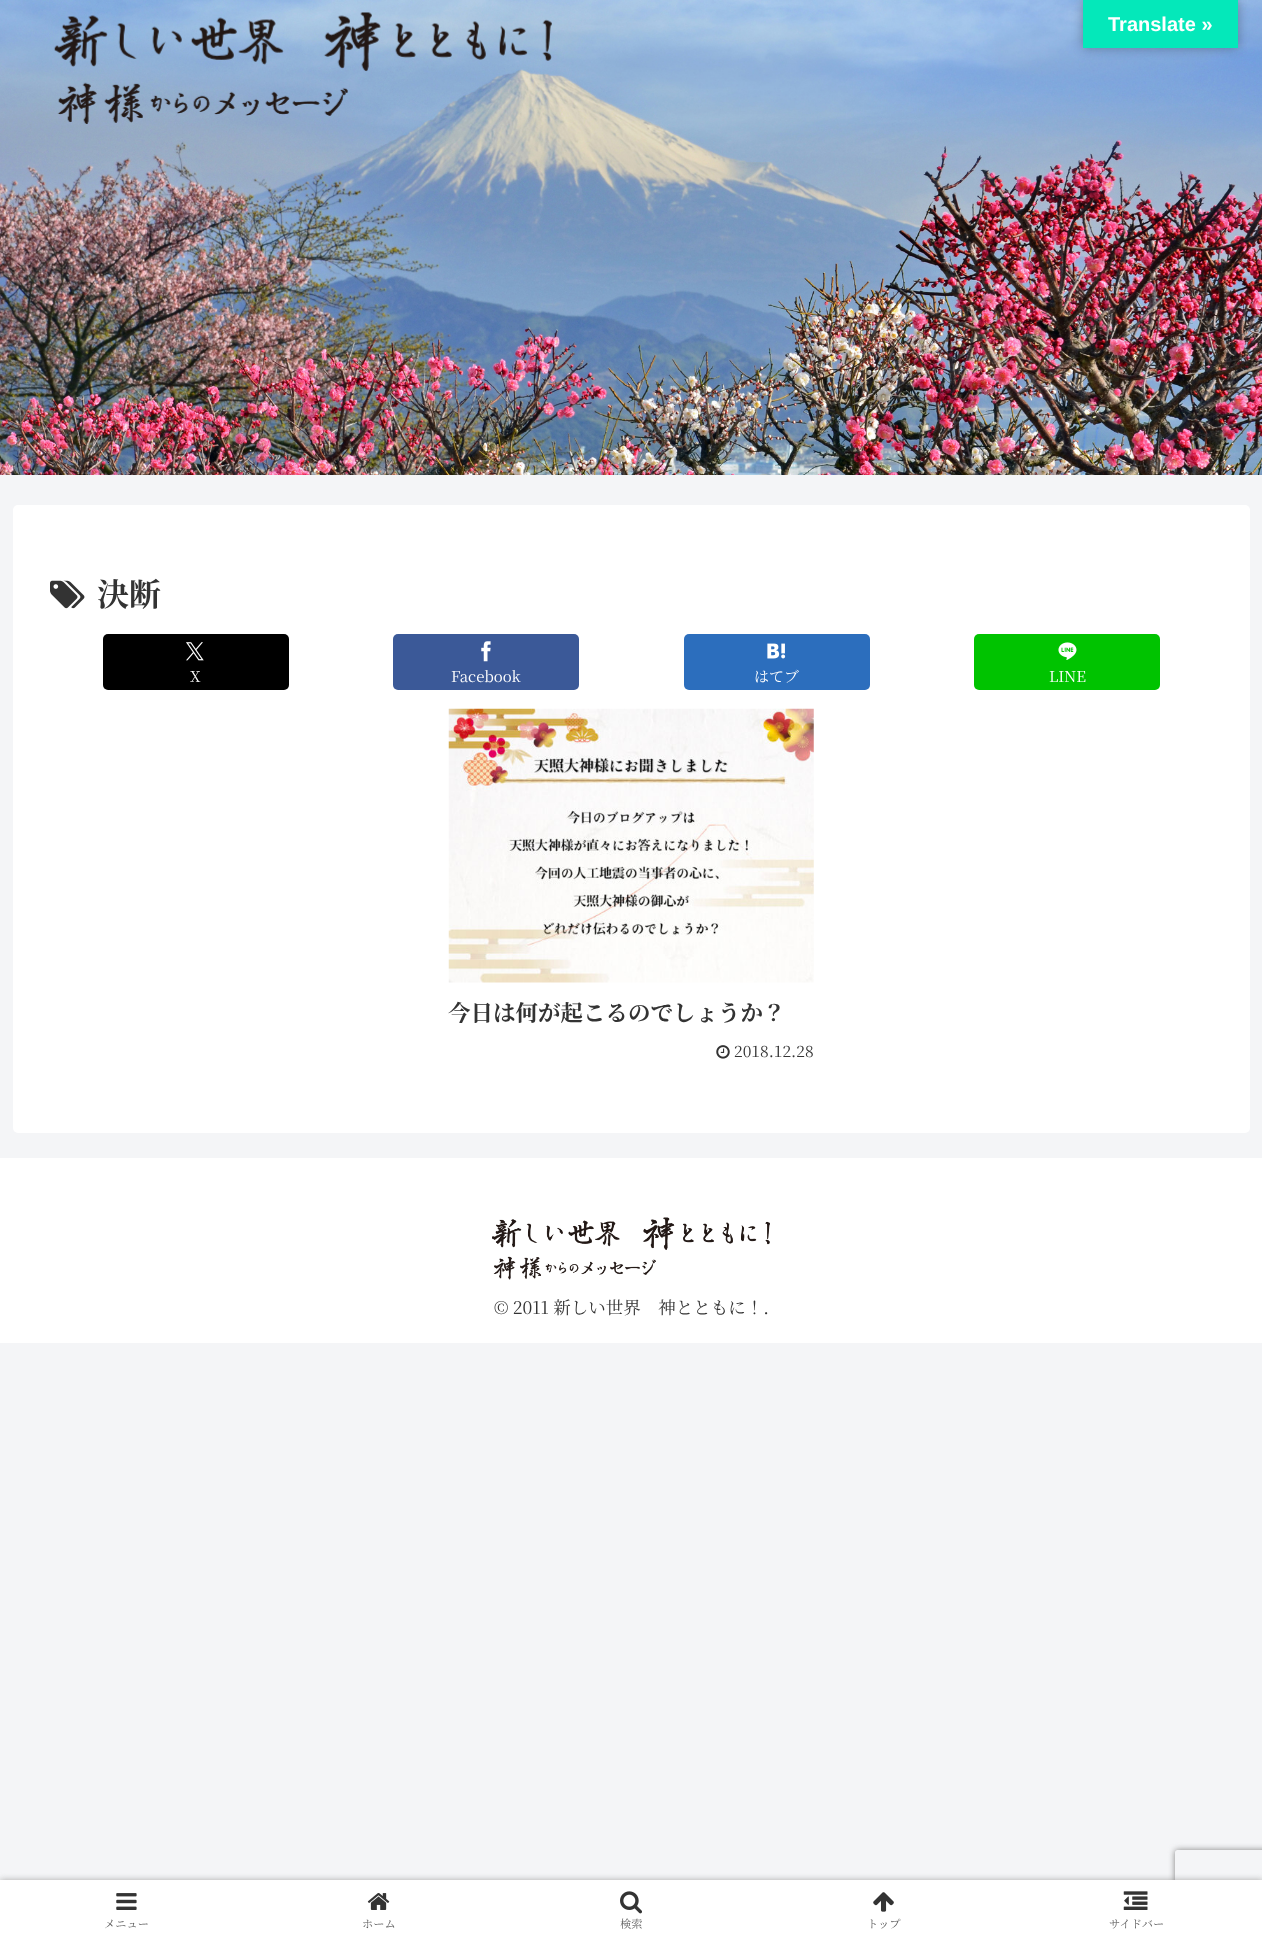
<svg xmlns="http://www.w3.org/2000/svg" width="1262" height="1942">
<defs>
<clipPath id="clip1"><path d="M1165 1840h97v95h-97zm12.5 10h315c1.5 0 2.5 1 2.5 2.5v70c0 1.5-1 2.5-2.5 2.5h-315c-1.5 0-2.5-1-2.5-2.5v-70c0-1.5 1-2.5 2.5-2.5z" clip-rule="evenodd"/></clipPath>
</defs>
<rect width="100%" height="100%" fill="#f4f5f7"/>
<image x="0" y="0" width="1262" height="475" href="media/1.png"/>
<image x="54" y="12" width="498" height="112" href="media/2.png"/>
<rect x="1083" width="155" height="48" fill="#0000004d" filter="blur(5.5px)"/>
<rect x="1083" width="155" height="48" fill="#04e8ba"/>
<text x="1108" y="31" style="font-family:Liberation Sans;font-size:20px;font-weight:bold;fill:#fff">Translate »</text>
<rect x="13" y="505" width="1237" height="628" rx="5" fill="#fff"/>
<image x="50" y="580" width="35" height="29" href="media/3.png"/>
<text x="97" y="606" style="font-family:Noto Serif JP;font-size:32px;font-weight:bold;fill:#333">決断</text>
<rect x="103" y="634" width="186" height="56" rx="5" fill="#000"/>
<image x="186" y="642" width="18" height="19" href="media/4.png"/>
<text x="190" y="682" style="font-family:Noto Serif JP;font-size:15px;fill:#fff">X</text>
<rect x="393" y="634" width="186" height="56" rx="5" fill="#3b5998"/>
<image x="481" y="641" width="10" height="21" href="media/5.png"/>
<text x="451" y="682" style="font-family:Noto Serif JP;font-size:15px;fill:#fff">Facebook</text>
<rect x="684" y="634" width="186" height="56" rx="5" fill="#2c6ebd"/>
<image x="767" y="643" width="19" height="16" href="media/6.png"/>
<text x="754" y="682" style="font-family:Noto Serif JP;font-size:15px;fill:#fff">はてブ</text>
<rect x="974" y="634" width="186" height="56" rx="5" fill="#00c300"/>
<image x="1058" y="642" width="19" height="18" href="media/7.png"/>
<text x="1049" y="682" style="font-family:Noto Serif JP;font-size:15px;fill:#fff">LINE</text>
<image x="448" y="708" width="366" height="275" href="media/8.png"/>
<text x="448" y="1021" style="font-family:Noto Serif JP;font-size:22.5px;font-weight:bold;fill:#333">今日は何が起こるのでしょうか？</text>
<image x="716" y="1045" width="14" height="14" href="media/9.png"/>
<text x="734" y="1057" style="font-family:Noto Serif JP;font-size:15.75px;fill:#333">2018.12.28</text>
<rect y="1158" width="1262" height="185" fill="#fff"/>
<image x="492" y="1217" width="278" height="63" href="media/10.png"/>
<text x="494" y="1314" style="font-family:Noto Serif JP;font-size:17.5px;fill:#333">© 2011 新しい世界　神とともに！.</text>
<rect y="1880" width="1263" height="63" fill="#a9a9a9" filter="blur(3px)"/>
<g clip-path="url(#clip1)">
<rect x="1175" y="1850" width="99" height="75" rx="2.5" fill="#808080" filter="blur(3px)"/>
</g>
<rect y="1880" width="1262" height="62" fill="#fff"/>
<image x="116" y="1893" width="21" height="17" href="media/11.png"/>
<text x="104" y="1928" style="font-family:Noto Serif JP;font-size:11.25px;fill:#5c5c5c">メニュー</text>
<image x="367" y="1893" width="23" height="17" href="media/12.png"/>
<text x="362" y="1928" style="font-family:Noto Serif JP;font-size:11.25px;fill:#5c5c5c">ホーム</text>
<image x="620" y="1891" width="22" height="23" href="media/13.png"/>
<text x="620" y="1928" style="font-family:Noto Serif JP;font-size:11.25px;fill:#5c5c5c">検索</text>
<image x="873" y="1892" width="21" height="20" href="media/14.png"/>
<text x="867" y="1928" style="font-family:Noto Serif JP;font-size:11.25px;fill:#5c5c5c">トップ</text>
<image x="1123" y="1891" width="25" height="19" href="media/15.png"/>
<text x="1109" y="1928" style="font-family:Noto Serif JP;font-size:11.25px;fill:#5c5c5c">サイドバー</text>
</svg>
